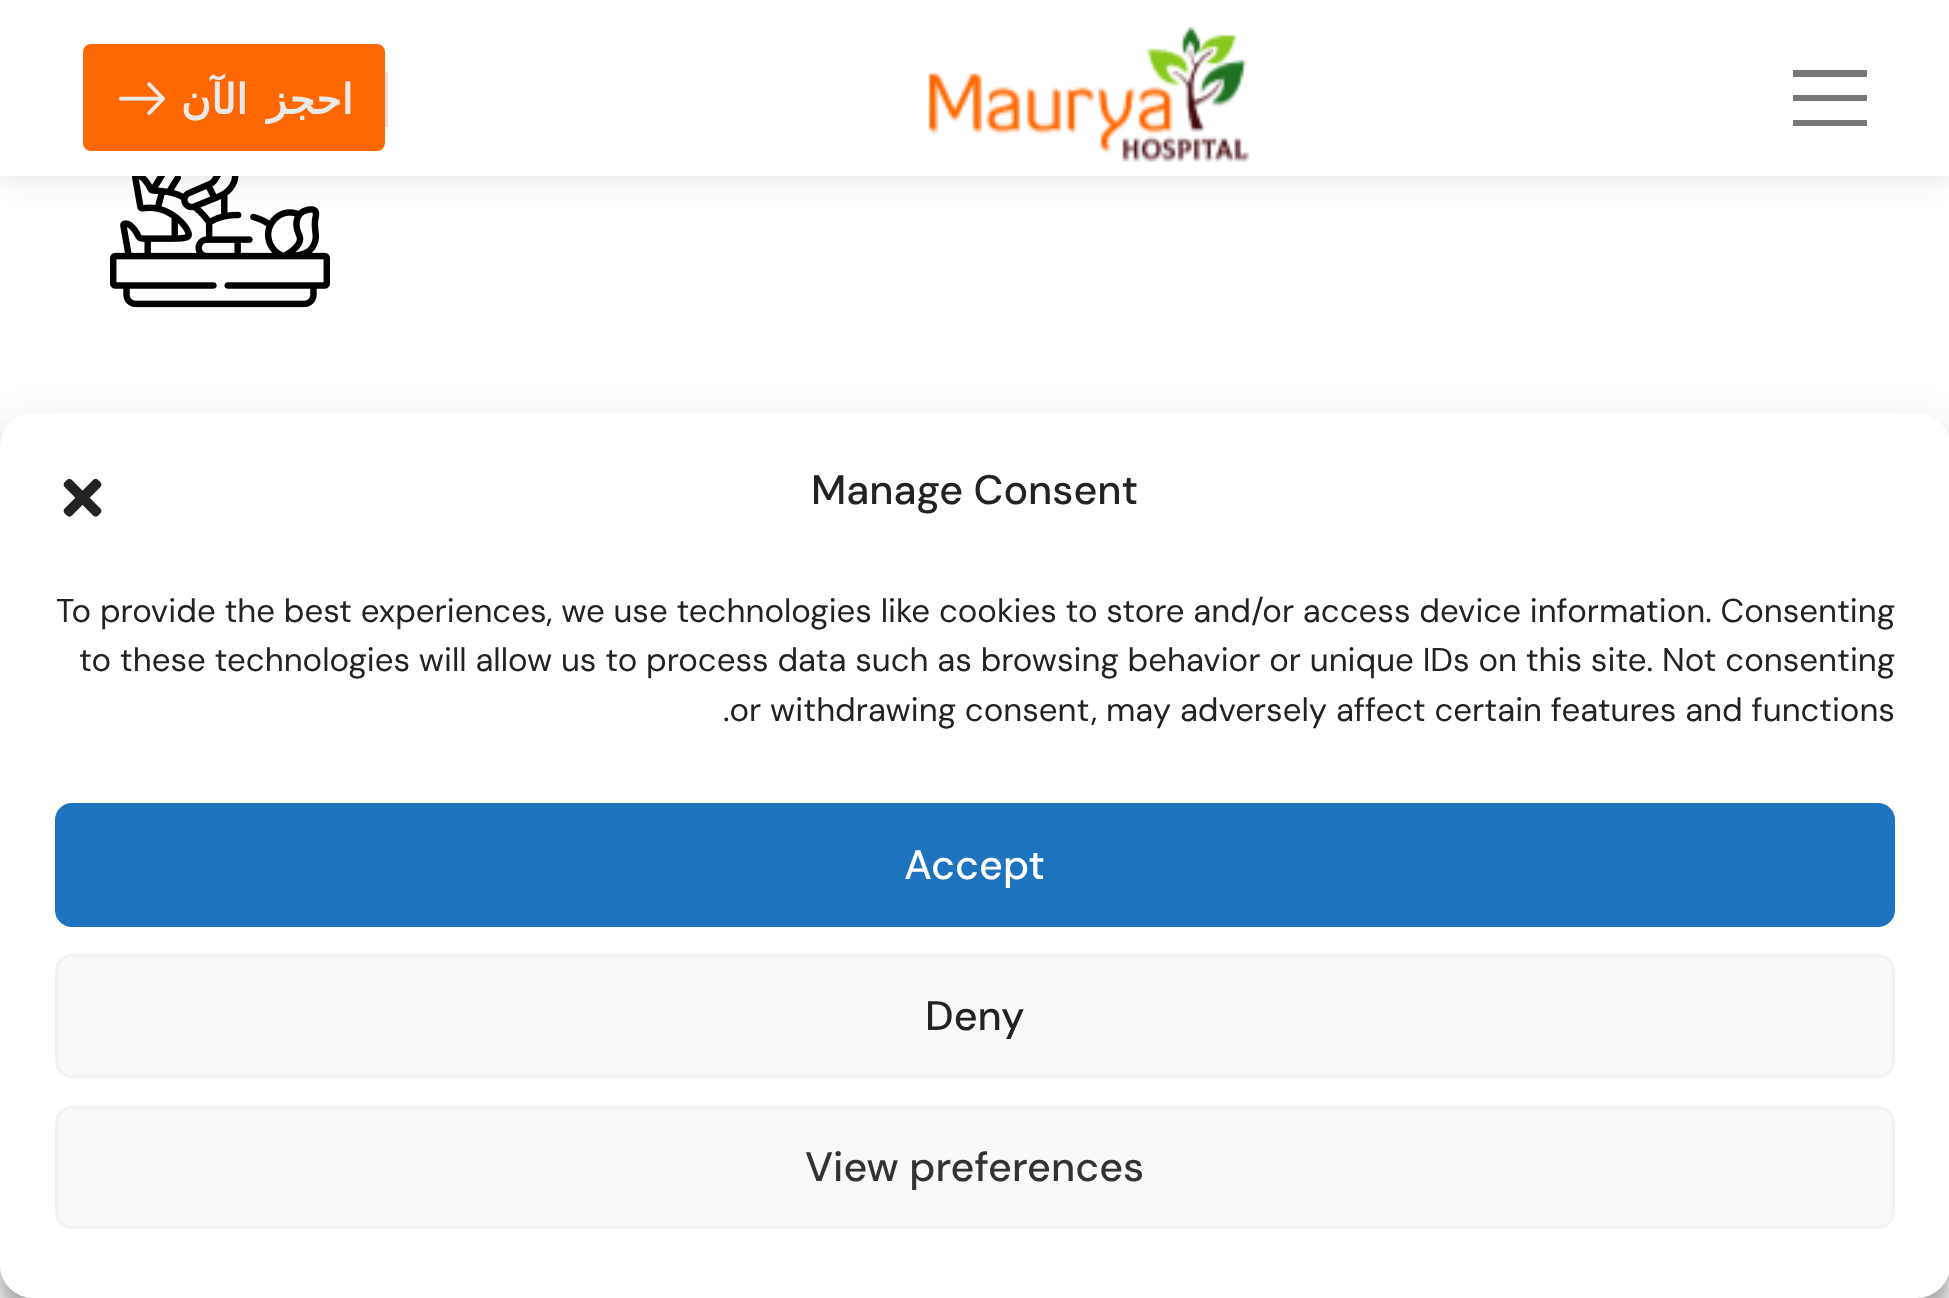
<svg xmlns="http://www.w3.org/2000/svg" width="1949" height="1298">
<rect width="100%" height="100%" fill="#fff"/>
<image x="110" y="176" width="220" height="132" href="media/3.png"/>
<rect x="-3" y="-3" width="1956" height="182" fill="#0000001a" filter="blur(14px)"/>
<rect width="1949" height="176" fill="#fff"/>
<rect x="86" y="47" width="296" height="101" rx="5" fill="#ff6700" stroke="#ff6700" stroke-width="6"/>
<image x="119" y="82" width="46" height="34" href="media/1.png"/>
<text x="353" y="114" word-spacing="6" style="font-family:DejaVu Sans;font-size:41.25px;font-weight:bold;letter-spacing:-1px;direction:rtl;fill:#e9e9e9">احجز الآن</text>
<rect x="385" y="72" width="3" height="55" fill="#e1e1e1"/>
<image x="928" y="26" width="322" height="136" href="media/2.png"/>
<path d="M1793 70v7h74v-7zm0 25v6h74v-6zm0 25v6h74v-6z" fill="#777"/>
<rect y="429" width="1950" height="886" rx="33" fill="#0000003b" filter="blur(8px)"/>
<rect y="440" width="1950" height="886" rx="33" fill="#00000030" filter="blur(27.5px)"/>
<rect y="413" width="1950" height="885" rx="33" fill="#fff"/>
<image x="63" y="478" width="39" height="39" href="media/4.png"/>
<text x="811" y="504" style="font-family:DM Sans;font-size:41.25px;font-weight:500;fill:#222">Manage Consent</text>
<text x="56" y="622" style="font-family:DM Sans;font-size:33px;fill:#222">To provide the best experiences, we use technologies like cookies to store and/or access device information. Consenting</text>
<text x="79" y="671" style="font-family:DM Sans;font-size:33px;fill:#222">to these technologies will allow us to process data such as browsing behavior or unique IDs on this site. Not consenting</text>
<text x="723" y="721" style="font-family:DM Sans;font-size:33px;fill:#222">.or withdrawing consent, may adversely affect certain features and functions</text>
<rect x="56.5" y="804.5" width="1837" height="121" rx="15.5" fill="#1e73be" stroke="#1e73be" stroke-width="3"/>
<text x="904" y="879" style="font-family:DM Sans;font-size:41.25px;font-weight:500;fill:#fff">Accept</text>
<rect x="56.5" y="955.5" width="1837" height="121" rx="15.5" fill="#f9f9f9" stroke="#f2f2f2" stroke-width="3"/>
<text x="925" y="1030" style="font-family:DM Sans;font-size:41.25px;font-weight:500;fill:#222">Deny</text>
<rect x="56.5" y="1107.5" width="1837" height="120" rx="15.5" fill="#f9f9f9" stroke="#f2f2f2" stroke-width="3"/>
<text x="805" y="1181" style="font-family:DM Sans;font-size:41.25px;font-weight:500;fill:#333">View preferences</text>
</svg>
